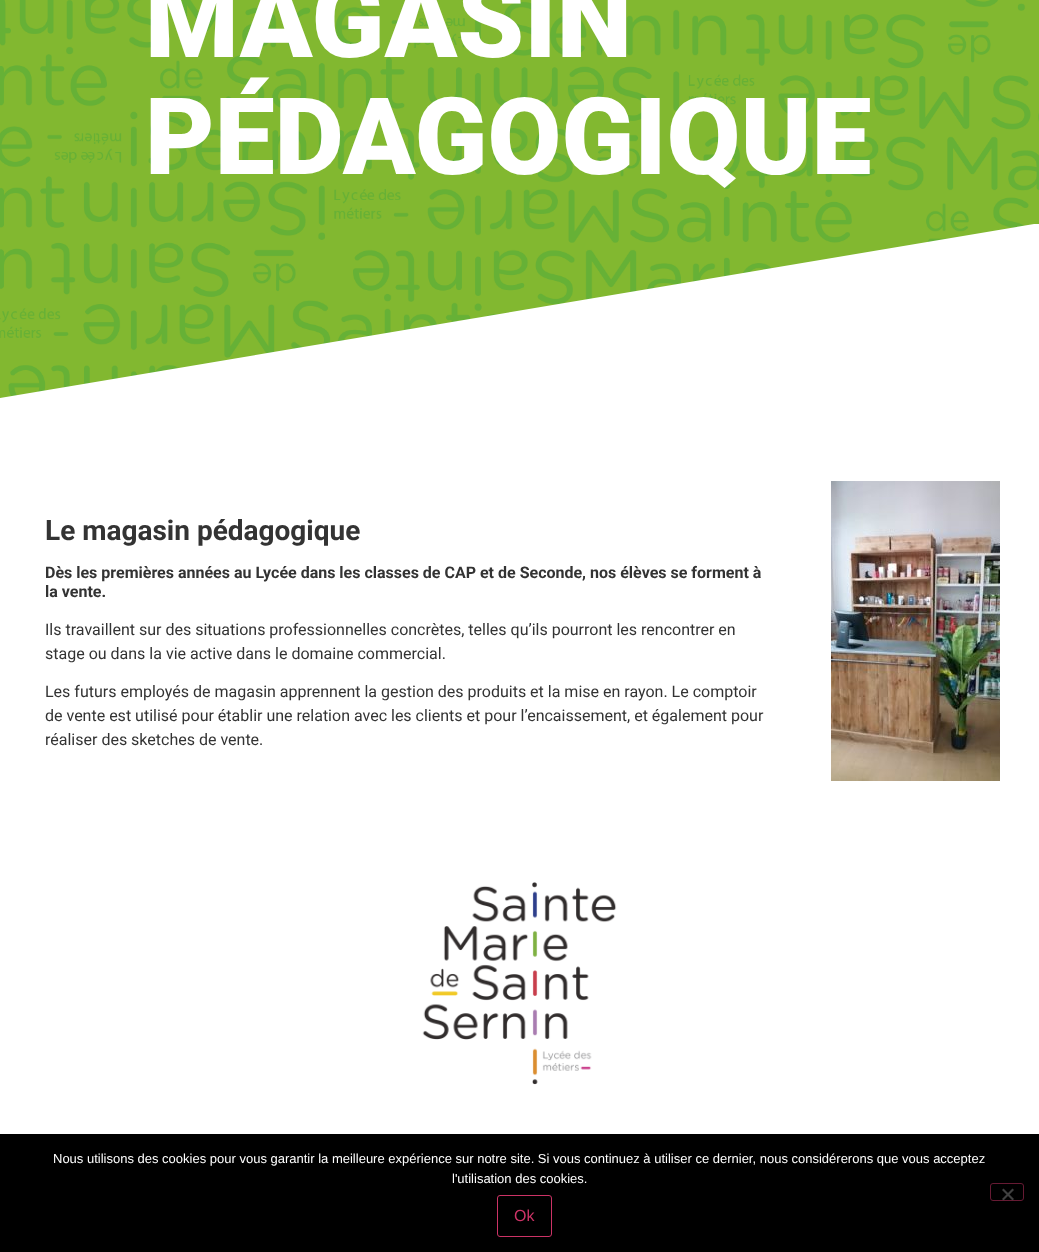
<svg xmlns="http://www.w3.org/2000/svg" width="1039" height="1252">
<defs>
<clipPath id="clip1"><rect y="224" width="1039" height="186"/></clipPath>
</defs>
<rect width="100%" height="100%" fill="#fff"/>
<image x="0" y="0" width="1039" height="398" href="media/1.png"/>
<text x="145" y="57" style="font-family:Roboto;font-size:107px;font-weight:900;fill:#fff">MAGASIN</text>
<text x="145" y="174" style="font-family:Roboto;font-size:107px;font-weight:900;fill:#fff">PÉDAGOGIQUE</text>
<g clip-path="url(#clip1)">
<path d="M0 398v11h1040v-186z" fill="#fff"/>
</g>
<text x="45" y="540" style="font-family:Roboto;font-size:28px;font-weight:bold;fill:#333">Le magasin pédagogique</text>
<text x="45" y="578" style="font-family:Roboto;font-size:16px;font-weight:bold;fill:#333">Dès les premières années au Lycée dans les classes de CAP et de Seconde, nos élèves se forment à</text>
<text x="45" y="597" style="font-family:Roboto;font-size:16px;font-weight:bold;fill:#333">la vente.</text>
<text x="45" y="635" style="font-family:Roboto;font-size:16px;fill:#333">Ils travaillent sur des situations professionnelles concrètes, telles qu’ils pourront les rencontrer en</text>
<text x="45" y="659" style="font-family:Roboto;font-size:16px;fill:#333">stage ou dans la vie active dans le domaine commercial.</text>
<text x="45" y="697" style="font-family:Roboto;font-size:16px;fill:#333">Les futurs employés de magasin apprennent la gestion des produits et la mise en rayon. Le comptoir</text>
<text x="45" y="721" style="font-family:Roboto;font-size:16px;fill:#333">de vente est utilisé pour établir une relation avec les clients et pour l’encaissement, et également pour</text>
<text x="45" y="745" style="font-family:Roboto;font-size:16px;fill:#333">réaliser des sketches de vente.</text>
<image x="831" y="481" width="169" height="300" href="media/2.png"/>
<image x="422" y="882" width="195" height="203" href="media/3.png"/>
<rect y="1134" width="1039" height="118" fill="#000"/>
<text x="53" y="1163" style="font-family:Liberation Sans;font-size:13px;fill:#fff">Nous utilisons des cookies pour vous garantir la meilleure expérience sur notre site. Si vous continuez à utiliser ce dernier, nous considérerons que vous acceptez</text>
<text x="452" y="1183" style="font-family:Liberation Sans;font-size:13px;fill:#fff">l'utilisation des cookies.</text>
<rect x="990.5" y="1183.5" width="33" height="17" rx="2.5" fill="none" stroke="#661a33"/>
<path d="M1012.5 1188.5l1.5 1.5l-10.5 10.5l-1.5-1.5z" fill="#404040"/>
<path d="M1002 1190l1.5-1.5l10.5 10.5l-1.5 1.5z" fill="#404040"/>
<rect x="497.5" y="1195.5" width="54" height="41" rx="2.5" fill="none" stroke="#c36"/>
<text x="514" y="1221" style="font-family:Liberation Sans;font-size:16px;fill:#c36">Ok</text>
</svg>
